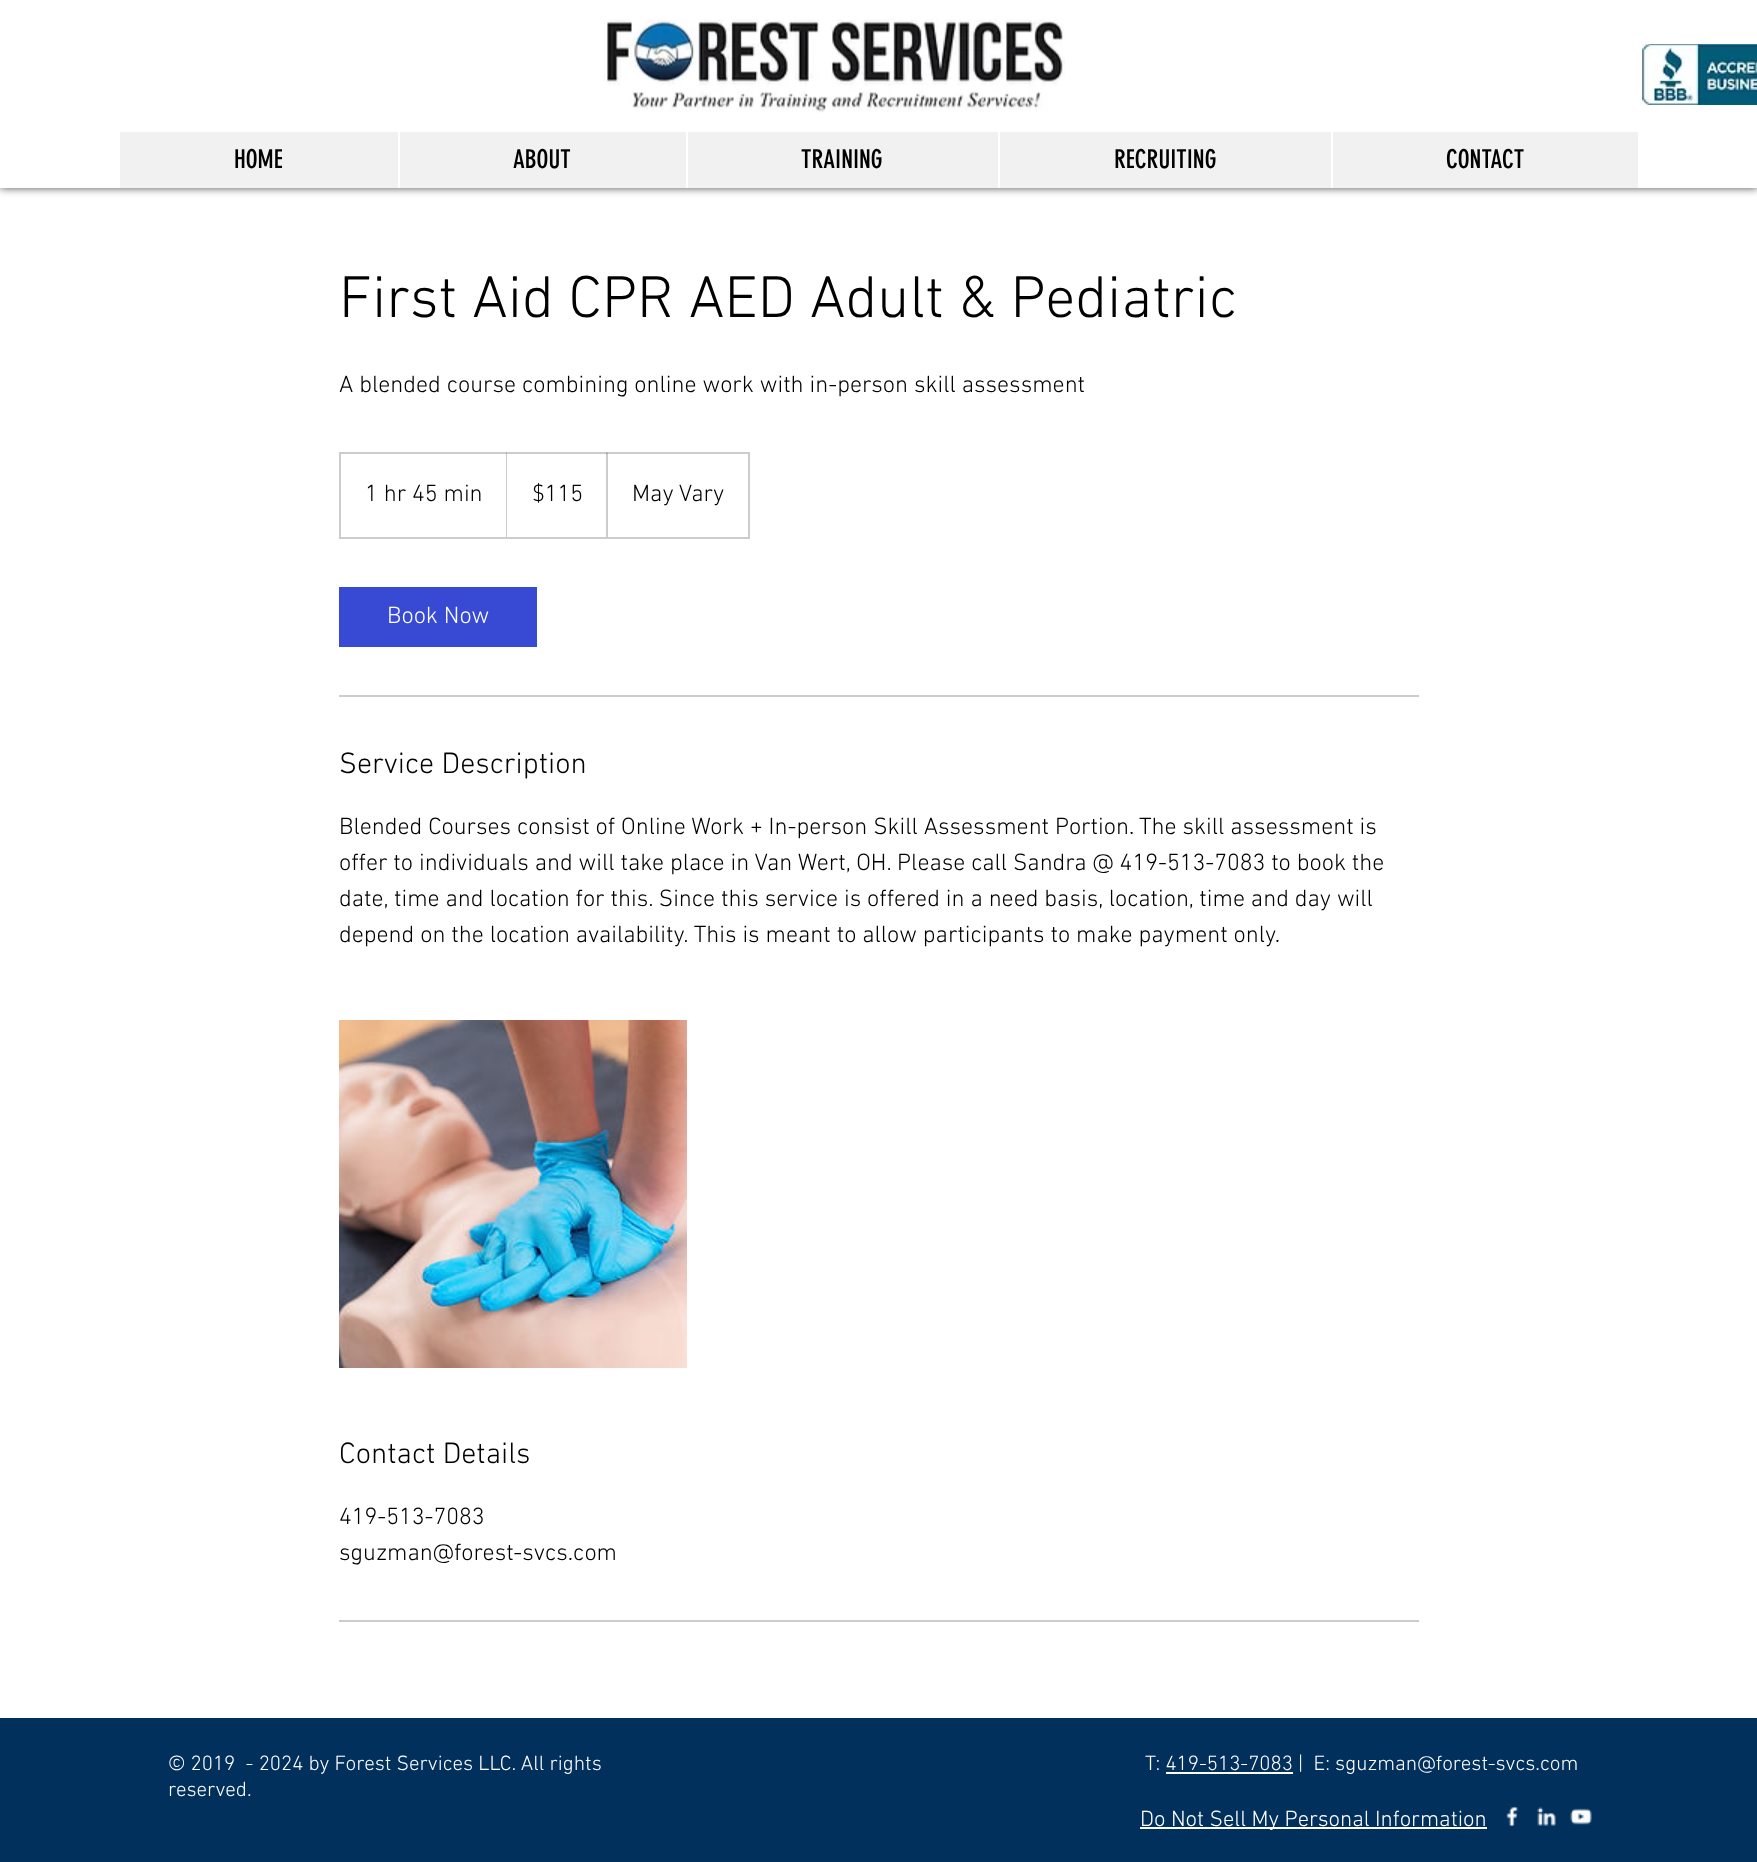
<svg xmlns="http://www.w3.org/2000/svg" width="1757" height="1862">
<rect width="100%" height="100%" fill="#fff"/>
<rect width="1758" height="188" fill="#000000b3" filter="blur(4px)"/>
<rect width="1757" height="188" fill="#fff"/>
<image x="603" y="19" width="462" height="94" href="media/1.png"/>
<image x="1642" y="44" width="115" height="61" href="media/2.png"/>
<rect x="120" y="132" width="1518" height="56" fill="#f1f1f1"/>
<text x="234" y="168" style="font-family:'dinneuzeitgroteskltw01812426';font-size:25.5px;fill:#000">HOME</text>
<rect x="398" y="132" width="2" height="56" fill="#fff"/>
<text x="513" y="168" style="font-family:'dinneuzeitgroteskltw01812426';font-size:25.5px;fill:#000">ABOUT</text>
<rect x="686" y="132" width="2" height="56" fill="#fff"/>
<text x="801" y="168" style="font-family:'dinneuzeitgroteskltw01812426';font-size:25.5px;fill:#000">TRAINING</text>
<rect x="998" y="132" width="2" height="56" fill="#fff"/>
<text x="1114" y="168" style="font-family:'dinneuzeitgroteskltw01812426';font-size:25.5px;fill:#000">RECRUITING</text>
<rect x="1331" y="132" width="2" height="56" fill="#fff"/>
<text x="1446" y="168" style="font-family:'dinneuzeitgroteskltw01812426';font-size:25.5px;fill:#000">CONTACT</text>
<text x="339" y="317" style="font-family:'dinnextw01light';font-size:60px;font-weight:300;fill:#000">First Aid CPR AED Adult &amp; Pediatric</text>
<text x="339" y="392" style="font-family:'dinnextw01light';font-size:24px;font-weight:300;fill:#000">A blended course combining online work with in-person skill assessment</text>
<rect x="340" y="453" width="409" height="85" fill="none" stroke="#ccc" stroke-width="2"/>
<text x="365" y="501" style="font-family:'dinnextw01light';font-size:24px;font-weight:300;fill:#000">1 hr 45 min</text>
<path d="M506 537v-85l1 1v84z" fill="#00000033"/>
<text x="532" y="501" style="font-family:'dinnextw01light';font-size:24px;font-weight:300;fill:#000">$115</text>
<path d="M606 537v-85l2 1v84z" fill="#00000033"/>
<text x="632" y="501" style="font-family:'dinnextw01light';font-size:24px;font-weight:300;fill:#000">May Vary</text>
<rect x="339" y="587" width="198" height="60" fill="#384ad3"/>
<text x="387" y="623" style="font-family:'dinnextw01light';font-size:24px;font-weight:300;fill:#fff">Book Now</text>
<rect x="339" y="695" width="1080" height="2" fill="#ccc"/>
<text x="339" y="773" style="font-family:'dinnextw01light';font-size:30px;font-weight:300;fill:#000">Service Description</text>
<text x="339" y="834" style="font-family:'dinnextw01light';font-size:24px;font-weight:300;fill:#000">Blended Courses consist of Online Work + In-person Skill Assessment Portion.</text>
<text x="1139" y="834" style="font-family:'dinnextw01light';font-size:24px;font-weight:300;fill:#000">The skill assessment is</text>
<text x="339" y="870" style="font-family:'dinnextw01light';font-size:24px;font-weight:300;fill:#000">offer to individuals and will take place in Van Wert, OH. Please call Sandra @ 419-513-7083 to book the</text>
<text x="339" y="906" style="font-family:'dinnextw01light';font-size:24px;font-weight:300;fill:#000">date, time and location for this. Since this service is offered in a need basis, location, time and day will</text>
<text x="339" y="942" style="font-family:'dinnextw01light';font-size:24px;font-weight:300;fill:#000">depend on the location availability. This is meant to allow participants to make payment only.</text>
<image x="339" y="1020" width="348" height="348" href="media/3.png"/>
<text x="339" y="1463" style="font-family:'dinnextw01light';font-size:30px;font-weight:300;fill:#000">Contact Details</text>
<text x="339" y="1524" style="font-family:'dinnextw01light';font-size:24px;font-weight:300;fill:#000">419-513-7083</text>
<text x="339" y="1560" style="font-family:'dinnextw01light';font-size:24px;font-weight:300;fill:#000">sguzman@forest-svcs.com</text>
<rect x="339" y="1620" width="1080" height="2" fill="#ccc"/>
<rect y="1718" width="1757" height="144" fill="#00305b"/>
<text x="168" y="1770" style="font-family:'dinnextw01light';font-size:21px;font-weight:300;fill:#fff" xml:space="preserve">© 2019  - 2024 by Forest Services LLC. All rights</text>
<text x="168" y="1796" style="font-family:'dinnextw01light';font-size:21px;font-weight:300;fill:#fff">reserved.</text>
<text x="1145" y="1770" style="font-family:'dinnextw01light';font-size:21px;font-weight:300;fill:#fff" xml:space="preserve">T: 419-513-7083 |  E: sguzman@forest-svcs.com</text>
<rect x="1166" y="1772" width="127" height="2" fill="#fff"/>
<rect x="1140" y="1827" width="347" height="2" fill="#fff"/>
<text x="1140" y="1826" style="font-family:'dinnextw01light';font-size:22.5px;font-weight:300;fill:#fff">Do Not Sell My Personal Information</text>
<image x="1506" y="1806" width="13" height="21" href="media/4.png"/>
<image x="1537" y="1807" width="19" height="19" href="media/5.png"/>
<image x="1570" y="1808" width="22" height="17" href="media/6.png"/>
</svg>
